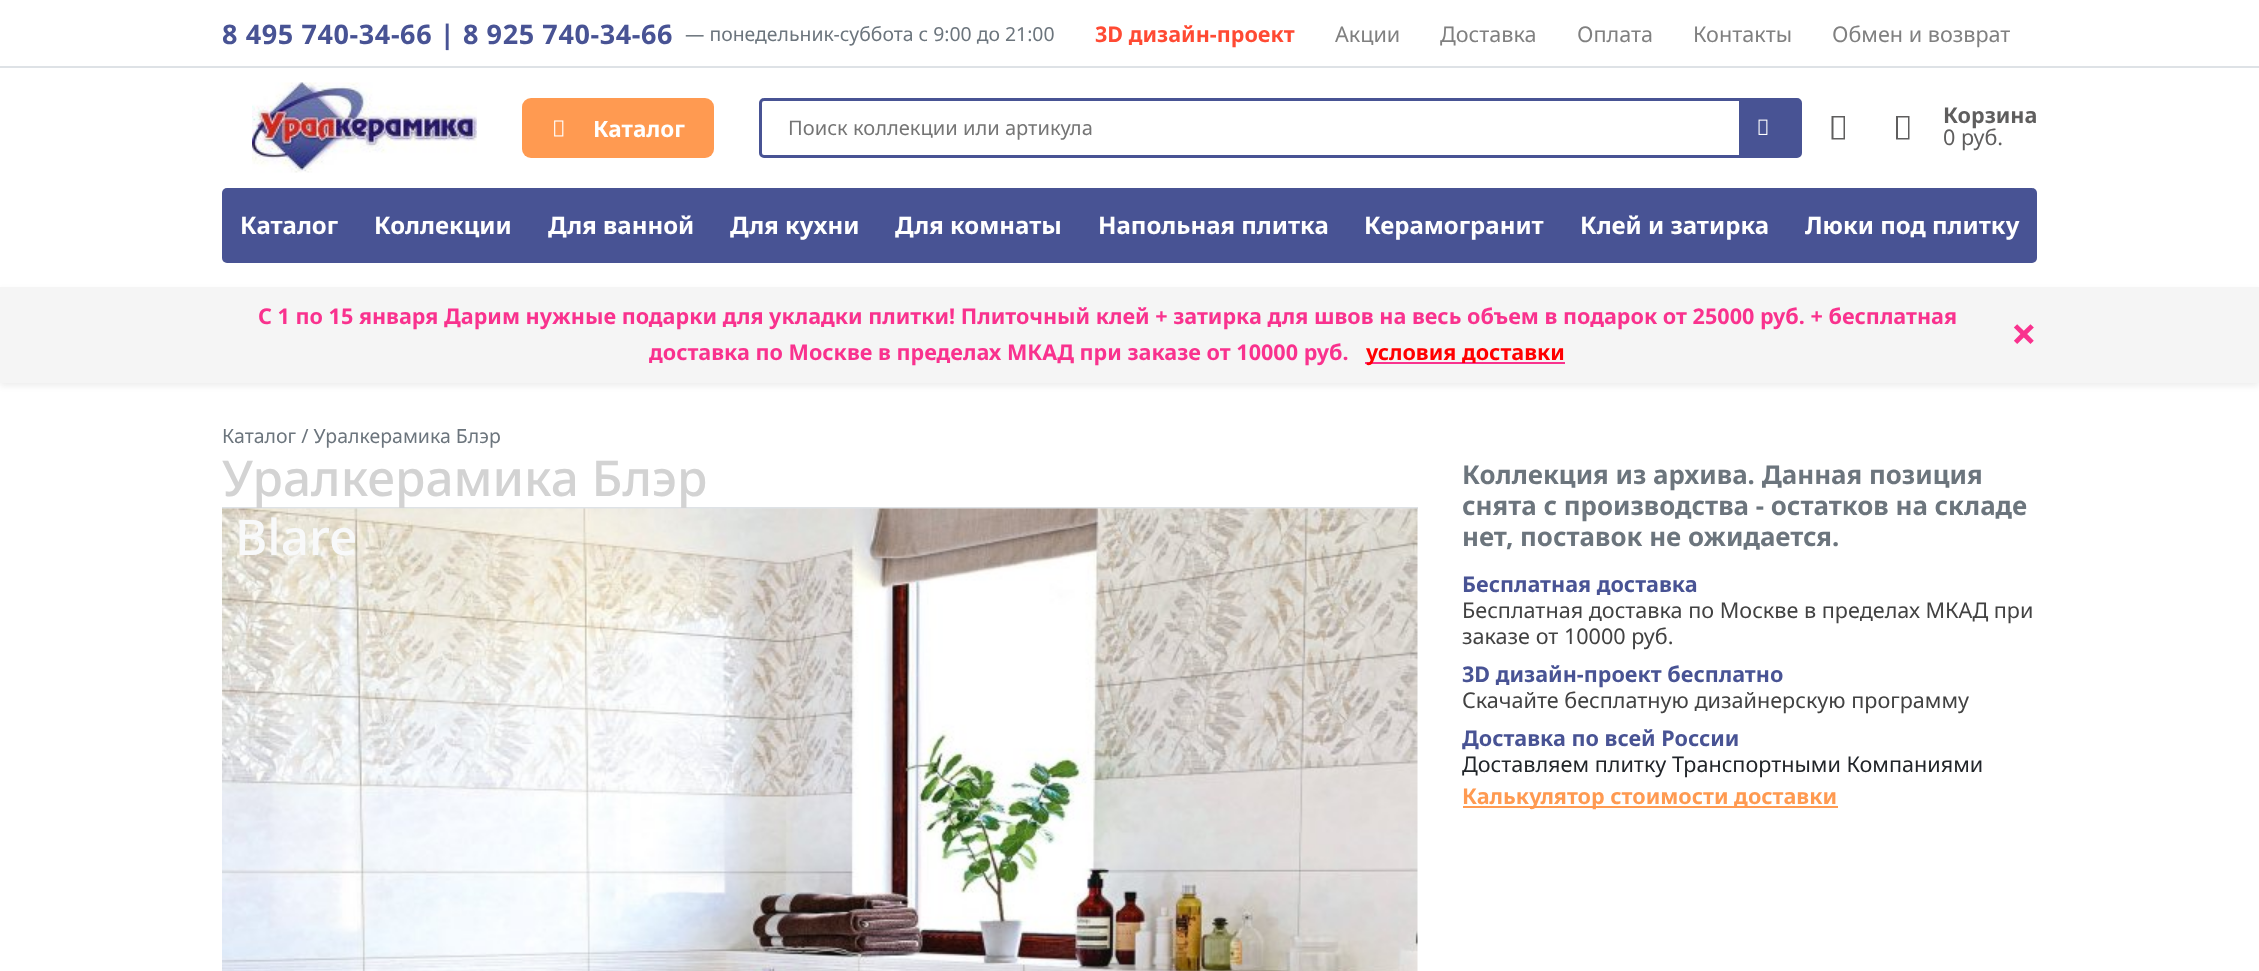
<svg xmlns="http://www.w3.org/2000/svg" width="2259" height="971">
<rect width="100%" height="100%" fill="#fff"/>
<rect y="66" width="2259" height="2" fill="#dee2e6"/>
<text x="222" y="44" style="font-family:Noto Sans;font-size:27px;font-weight:bold;letter-spacing:0.6px;fill:#485394">8 495 740-34-66 | 8 925 740-34-66</text>
<text x="685" y="41" style="font-family:Noto Sans;font-size:19.4px;fill:#6c757d">— понедельник-суббота с 9:00 до 21:00</text>
<text x="1095" y="42" style="font-family:Noto Sans;font-size:21.6px;font-weight:bold;fill:#ff4a33">3D дизайн-проект</text>
<text x="1335" y="42" style="font-family:Noto Sans;font-size:21.6px;fill:#808080">Акции</text>
<text x="1440" y="42" style="font-family:Noto Sans;font-size:21.6px;fill:#808080">Доставка</text>
<text x="1577" y="42" style="font-family:Noto Sans;font-size:21.6px;fill:#808080">Оплата</text>
<text x="1693" y="42" style="font-family:Noto Sans;font-size:21.6px;fill:#808080">Контакты</text>
<text x="1832" y="42" style="font-family:Noto Sans;font-size:21.6px;fill:#808080">Обмен и возврат</text>
<image x="252" y="82" width="225" height="91" href="media/1.png"/>
<rect x="522" y="98" width="192" height="60" rx="9" fill="#ff9a51"/>
<image x="554" y="120" width="10" height="17" href="media/2.png"/>
<text x="593" y="137" style="font-family:Noto Sans;font-size:22.5px;font-weight:bold;fill:#fff">Каталог</text>
<rect x="760.5" y="99.5" width="1040" height="57" rx="3.5" fill="none" stroke="#485394" stroke-width="3"/>
<text x="788" y="135" style="font-family:Noto Sans;font-size:20.1px;fill:#757575">Поиск коллекции или артикула</text>
<rect x="1739" y="101" width="60" height="54" fill="#485394"/>
<image x="1758" y="119" width="10" height="16" href="media/3.png"/>
<path d="M1831.5 139.5v-23.5h13.5v23.5zm2-1.5h10v-20.5h-10z" fill="#5f5e5e"/>
<path d="M1896 139.5v-23.5h13.5v23.5zm2-1.5h10v-20.5h-10z" fill="#5f5e5e"/>
<text x="1943" y="123" style="font-family:Noto Sans;font-size:21.6px;font-weight:bold;fill:#5f5e5e">Корзина</text>
<text x="1943" y="145" style="font-family:Noto Sans;font-size:21.6px;fill:#5f5e5e">0 руб.</text>
<rect x="222" y="188" width="1815" height="75" rx="5" fill="#485394"/>
<text x="240" y="234" style="font-family:Noto Sans;font-size:24px;font-weight:bold;fill:#fff">Каталог</text>
<text x="374" y="234" style="font-family:Noto Sans;font-size:24px;font-weight:bold;fill:#fff">Коллекции</text>
<text x="548" y="234" style="font-family:Noto Sans;font-size:24px;font-weight:bold;fill:#fff">Для ванной</text>
<text x="730" y="234" style="font-family:Noto Sans;font-size:24px;font-weight:bold;fill:#fff">Для кухни</text>
<text x="895" y="234" style="font-family:Noto Sans;font-size:24px;font-weight:bold;fill:#fff">Для комнаты</text>
<text x="1098" y="234" style="font-family:Noto Sans;font-size:24px;font-weight:bold;fill:#fff">Напольная плитка</text>
<text x="1364" y="234" style="font-family:Noto Sans;font-size:24px;font-weight:bold;fill:#fff">Керамогранит</text>
<text x="1580" y="234" style="font-family:Noto Sans;font-size:24px;font-weight:bold;fill:#fff">Клей и затирка</text>
<text x="1805" y="234" style="font-family:Noto Sans;font-size:24px;font-weight:bold;fill:#fff">Люки под плитку</text>
<rect y="290" width="2259" height="96" fill="#00000012" filter="blur(3px)"/>
<rect y="287" width="2259" height="96" fill="#f5f5f5"/>
<text x="258" y="324" style="font-family:Noto Sans;font-size:21.6px;font-weight:bold;fill:#f9328e">С 1 по 15 января Дарим нужные подарки для укладки плитки! Плиточный клей + затирка для швов на весь объем в подарок от 25000 руб. + бесплатная</text>
<text x="2011" y="350" style="font-family:Noto Sans;font-size:45px;font-weight:bold;fill:#f9328e">×</text>
<text x="649" y="360" style="font-family:Noto Sans;font-size:21.6px;font-weight:bold;fill:#f9328e">доставка по Москве в пределах МКАД при заказе от 10000 руб.</text>
<rect x="1365" y="362" width="200" height="2" fill="#f9328e"/>
<text x="1366" y="360" style="font-family:Noto Sans;font-size:21.6px;font-weight:bold;fill:#f00">условия доставки</text>
<text x="222" y="443" style="font-family:Noto Sans;font-size:19.5px;fill:#6c757d">Каталог / Уралкерамика Блэр</text>
<rect x="222" y="507" width="1196" height="2" fill="#dee2e6"/>
<text x="222" y="496" style="font-family:Noto Sans;font-size:49.5px;font-weight:500;fill:#d3d3d3">Уралкерамика Блэр</text>
<image x="222" y="508" width="1196" height="463" href="media/4.png"/>
<text x="235" y="555" style="font-family:Noto Sans;font-size:49.5px;font-weight:500;fill:#f8f9fa">Blare</text>
<text x="1462" y="484" style="font-family:Noto Sans;font-size:25.9px;font-weight:bold;fill:#6c757d">Коллекция из архива. Данная позиция</text>
<text x="1462" y="515" style="font-family:Noto Sans;font-size:25.9px;font-weight:bold;fill:#6c757d">снята с производства - остатков на складе</text>
<text x="1462" y="546" style="font-family:Noto Sans;font-size:25.9px;font-weight:bold;fill:#6c757d">нет, поставок не ожидается.</text>
<text x="1462" y="592" style="font-family:Noto Sans;font-size:21.6px;font-weight:bold;fill:#485394">Бесплатная доставка</text>
<text x="1462" y="618" style="font-family:Noto Sans;font-size:21.6px;fill:#424242">Бесплатная доставка по Москве в пределах МКАД при</text>
<text x="1462" y="644" style="font-family:Noto Sans;font-size:21.6px;fill:#424242">заказе от 10000 руб.</text>
<text x="1462" y="682" style="font-family:Noto Sans;font-size:21.6px;font-weight:bold;fill:#485394">3D дизайн-проект бесплатно</text>
<text x="1462" y="708" style="font-family:Noto Sans;font-size:21.6px;fill:#424242">Скачайте бесплатную дизайнерскую программу</text>
<text x="1462" y="746" style="font-family:Noto Sans;font-size:21.6px;font-weight:bold;fill:#485394">Доставка по всей России</text>
<text x="1462" y="772" style="font-family:Noto Sans;font-size:21.6px;fill:#212529">Доставляем плитку Транспортными Компаниями</text>
<rect x="1463" y="806" width="375" height="2" fill="#ff9a51"/>
<text x="1462" y="804" style="font-family:Noto Sans;font-size:21.6px;font-weight:bold;fill:#ff9a51">Калькулятор стоимости доставки</text>
</svg>
